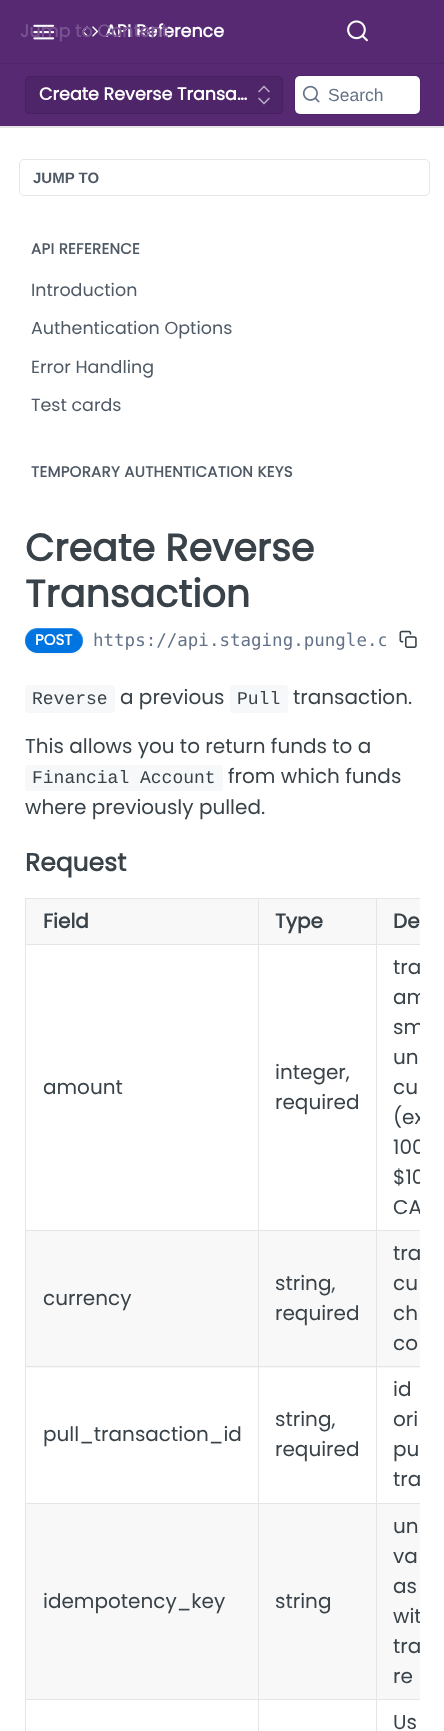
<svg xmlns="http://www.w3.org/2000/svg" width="444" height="1731">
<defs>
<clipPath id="clip1"><rect x="93" y="628" width="293" height="25"/></clipPath>
<clipPath id="clip2"><rect x="25" y="898" width="395" height="833"/></clipPath>
</defs>
<rect width="100%" height="100%" fill="#fff"/>
<rect y="126" width="444" height="2" fill="#e6e6e6"/>
<rect width="444" height="126" fill="#572973"/>
<rect y="63" width="444" height="1" fill="#4e2568"/>
<image x="33" y="24" width="22" height="16" href="media/1.png"/>
<image x="82" y="26" width="16" height="11" href="media/2.png"/>
<text x="105" y="37" style="font-family:Poppins;font-size:17.5px;font-weight:bold;fill:#fff">API Reference</text>
<image x="347" y="20" width="21" height="22" href="media/3.png"/>
<text x="20" y="37" style="font-family:Poppins;font-size:17.5px;font-weight:bold;fill:#77528e">Jump to Content</text>
<rect x="25" y="76" width="258" height="38" rx="5" fill="#4e2568"/>
<rect x="25.5" y="76.5" width="257" height="37" rx="4.5" fill="none" stroke="#0000001a"/>
<text x="39" y="100" style="font-family:Poppins;font-size:17.5px;font-weight:bold;fill:#fff">Create Reverse Transa…</text>
<path d="M259 98.5l5 5l5-5m0-7l-5-5l-5 5" fill="none" stroke="#b8a8c3" stroke-width="1.7" stroke-linecap="round" stroke-linejoin="round"/>
<rect x="294.5" y="75.5" width="126" height="39" rx="5.5" fill="none" stroke="#4e2568"/>
<rect x="295" y="76" width="125" height="38" rx="5" fill="#fff"/>
<image x="302" y="85" width="18" height="18" href="media/4.png"/>
<text x="328" y="101" style="font-family:Liberation Sans;font-size:17.5px;fill:#637288">Search</text>
<rect x="19.5" y="159.5" width="410" height="36" rx="4.5" fill="none" stroke="#e6e6e6"/>
<text x="33" y="183" style="font-family:Liberation Sans;font-size:15px;font-weight:bold;fill:#4f5a66">JUMP TO</text>
<text x="31" y="254" style="font-family:Poppins;font-size:15px;font-weight:bold;letter-spacing:0.3px;fill:#4f5a66">API REFERENCE</text>
<text x="31" y="296" style="font-family:Poppins;font-size:17.5px;fill:#4f5a66">Introduction</text>
<text x="31" y="334" style="font-family:Poppins;font-size:17.5px;fill:#4f5a66">Authentication Options</text>
<text x="31" y="373" style="font-family:Poppins;font-size:17.5px;fill:#4f5a66">Error Handling</text>
<text x="31" y="411" style="font-family:Poppins;font-size:17.5px;fill:#4f5a66">Test cards</text>
<text x="31" y="477" style="font-family:Poppins;font-size:15px;font-weight:bold;letter-spacing:0.3px;fill:#4f5a66">TEMPORARY AUTHENTICATION KEYS</text>
<text x="25" y="561" style="font-family:Poppins;font-size:38px;font-weight:bold;fill:#384248">Create Reverse</text>
<text x="25" y="607" style="font-family:Poppins;font-size:38px;font-weight:bold;fill:#384248">Transaction</text>
<rect x="25" y="629" width="58" height="25" rx="12.5" fill="#0000000d" filter="blur(1px)"/>
<rect x="25" y="628" width="58" height="25" rx="12.5" fill="#0074e1"/>
<path d="M38 629h35c4 1 8 5 9 10c1 3 0 7-2 10c2-2 3-5 3-9c0-6-6-12-13-12h-32c-7 0-13 6-13 12l1 5c-2-7 2-16 12-16z" fill="#ffffff33"/>
<text x="35" y="645" style="font-family:Poppins;font-size:15px;font-weight:bold;fill:#fff">POST</text>
<g clip-path="url(#clip1)">
<text x="93" y="646" style="font-family:DejaVu Sans Mono;font-size:17.5px;fill:#637288">https://api.staging.pungle.c</text>
</g>
<image x="399" y="630" width="18" height="18" href="media/5.png"/>
<rect x="25" y="685" width="90" height="28" rx="4" fill="#f6f8fa"/>
<text x="32" y="704" style="font-family:Liberation Mono;font-size:18px;fill:#384248">Reverse</text>
<text x="120" y="704" style="font-family:Poppins;font-size:20px;fill:#384248">a previous</text>
<rect x="230" y="685" width="58" height="28" rx="4" fill="#f6f8fa"/>
<text x="237" y="704" style="font-family:Liberation Mono;font-size:18px;fill:#384248">Pull</text>
<text x="293" y="704" style="font-family:Poppins;font-size:20px;fill:#384248">transaction.</text>
<text x="25" y="753" style="font-family:Poppins;font-size:20px;fill:#384248">This allows you to return funds to a</text>
<rect x="25" y="765" width="198" height="26" rx="4" fill="#f6f8fa"/>
<text x="32" y="783" style="font-family:Liberation Mono;font-size:18px;fill:#384248">Financial Account</text>
<text x="228" y="783" style="font-family:Poppins;font-size:20px;fill:#384248">from which funds</text>
<text x="25" y="814" style="font-family:Poppins;font-size:20px;fill:#384248">where previously pulled.</text>
<text x="25" y="871" style="font-family:Poppins;font-size:25px;font-weight:bold;fill:#384248">Request</text>
<rect x="25" y="898" width="395" height="1" fill="#e5e5e5"/>
<rect x="25" y="898" width="1" height="833" fill="#e5e5e5"/>
<rect x="26" y="899" width="394" height="45" fill="#f8f8f8"/>
<text x="43" y="928" style="font-family:Poppins;font-size:20px;font-weight:bold;fill:#384248">Field</text>
<rect x="376" y="944" width="44" height="1" fill="#e5e5e5"/>
<rect x="25" y="1230" width="395" height="1" fill="#e5e5e5"/>
<rect x="26" y="1231" width="394" height="137" fill="#f8f8f8"/>
<rect x="25" y="1366" width="395" height="1" fill="#e5e5e5"/>
<rect x="26" y="1504" width="394" height="195" fill="#f8f8f8"/>
<rect x="25" y="1503" width="395" height="1" fill="#e5e5e5"/>
<rect x="25" y="1699" width="395" height="1" fill="#e5e5e5"/>
<rect x="376" y="1230" width="1" height="501" fill="#e5e5e5"/>
<rect x="376" y="944" width="1" height="287" fill="#e5e5e5"/>
<rect x="258" y="944" width="120" height="1" fill="#e5e5e5"/>
<rect x="258" y="1230" width="1" height="501" fill="#e5e5e5"/>
<rect x="258" y="944" width="1" height="287" fill="#e5e5e5"/>
<rect x="25" y="944" width="234" height="1" fill="#e5e5e5"/>
<rect x="258" y="898" width="1" height="47" fill="#e5e5e5"/>
<text x="275" y="928" style="font-family:Poppins;font-size:20px;font-weight:bold;fill:#384248">Type</text>
<rect x="376" y="898" width="1" height="47" fill="#e5e5e5"/>
<text x="393" y="928" style="font-family:Poppins;font-size:20px;font-weight:bold;fill:#384248">De</text>
<text x="43" y="1094" style="font-family:Poppins;font-size:20px;fill:#384248">amount</text>
<text x="275" y="1079" style="font-family:Poppins;font-size:20px;fill:#384248">integer,</text>
<text x="275" y="1109" style="font-family:Poppins;font-size:20px;fill:#384248">required</text>
<g clip-path="url(#clip2)">
<text x="393" y="974" style="font-family:Poppins;font-size:20px;fill:#384248">tra</text>
<text x="393" y="1004" style="font-family:Poppins;font-size:20px;fill:#384248">am</text>
<text x="393" y="1034" style="font-family:Poppins;font-size:20px;fill:#384248">sm</text>
</g>
<text x="393" y="1064" style="font-family:Poppins;font-size:20px;fill:#384248">un</text>
<text x="393" y="1094" style="font-family:Poppins;font-size:20px;fill:#384248">cu</text>
<g clip-path="url(#clip2)">
<text x="393" y="1124" style="font-family:Poppins;font-size:20px;fill:#384248">(ex</text>
<text x="393" y="1154" style="font-family:Poppins;font-size:20px;fill:#384248">100</text>
<text x="393" y="1184" style="font-family:Poppins;font-size:20px;fill:#384248">$10</text>
<text x="393" y="1214" style="font-family:Poppins;font-size:20px;fill:#384248">CA</text>
</g>
<text x="43" y="1305" style="font-family:Poppins;font-size:20px;fill:#384248">currency</text>
<text x="275" y="1290" style="font-family:Poppins;font-size:20px;fill:#384248">string,</text>
<text x="275" y="1320" style="font-family:Poppins;font-size:20px;fill:#384248">required</text>
<g clip-path="url(#clip2)">
<text x="393" y="1260" style="font-family:Poppins;font-size:20px;fill:#384248">tra</text>
</g>
<text x="393" y="1290" style="font-family:Poppins;font-size:20px;fill:#384248">cu</text>
<text x="393" y="1320" style="font-family:Poppins;font-size:20px;fill:#384248">ch</text>
<text x="393" y="1350" style="font-family:Poppins;font-size:20px;fill:#384248">co</text>
<text x="43" y="1441" style="font-family:Poppins;font-size:20px;fill:#384248">pull_transaction_id</text>
<text x="275" y="1426" style="font-family:Poppins;font-size:20px;fill:#384248">string,</text>
<text x="275" y="1456" style="font-family:Poppins;font-size:20px;fill:#384248">required</text>
<text x="393" y="1396" style="font-family:Poppins;font-size:20px;fill:#384248">id</text>
<text x="393" y="1426" style="font-family:Poppins;font-size:20px;fill:#384248">ori</text>
<text x="393" y="1456" style="font-family:Poppins;font-size:20px;fill:#384248">pu</text>
<g clip-path="url(#clip2)">
<text x="393" y="1486" style="font-family:Poppins;font-size:20px;fill:#384248">tra</text>
</g>
<text x="43" y="1608" style="font-family:Poppins;font-size:20px;fill:#384248">idempotency_key</text>
<text x="275" y="1608" style="font-family:Poppins;font-size:20px;fill:#384248">string</text>
<text x="393" y="1533" style="font-family:Poppins;font-size:20px;fill:#384248">un</text>
<text x="393" y="1563" style="font-family:Poppins;font-size:20px;fill:#384248">va</text>
<text x="393" y="1593" style="font-family:Poppins;font-size:20px;fill:#384248">as</text>
<g clip-path="url(#clip2)">
<text x="393" y="1623" style="font-family:Poppins;font-size:20px;fill:#384248">wit</text>
<text x="393" y="1653" style="font-family:Poppins;font-size:20px;fill:#384248">tra</text>
</g>
<text x="393" y="1683" style="font-family:Poppins;font-size:20px;fill:#384248">re</text>
<text x="393" y="1729" style="font-family:Poppins;font-size:20px;fill:#384248">Us</text>
</svg>
